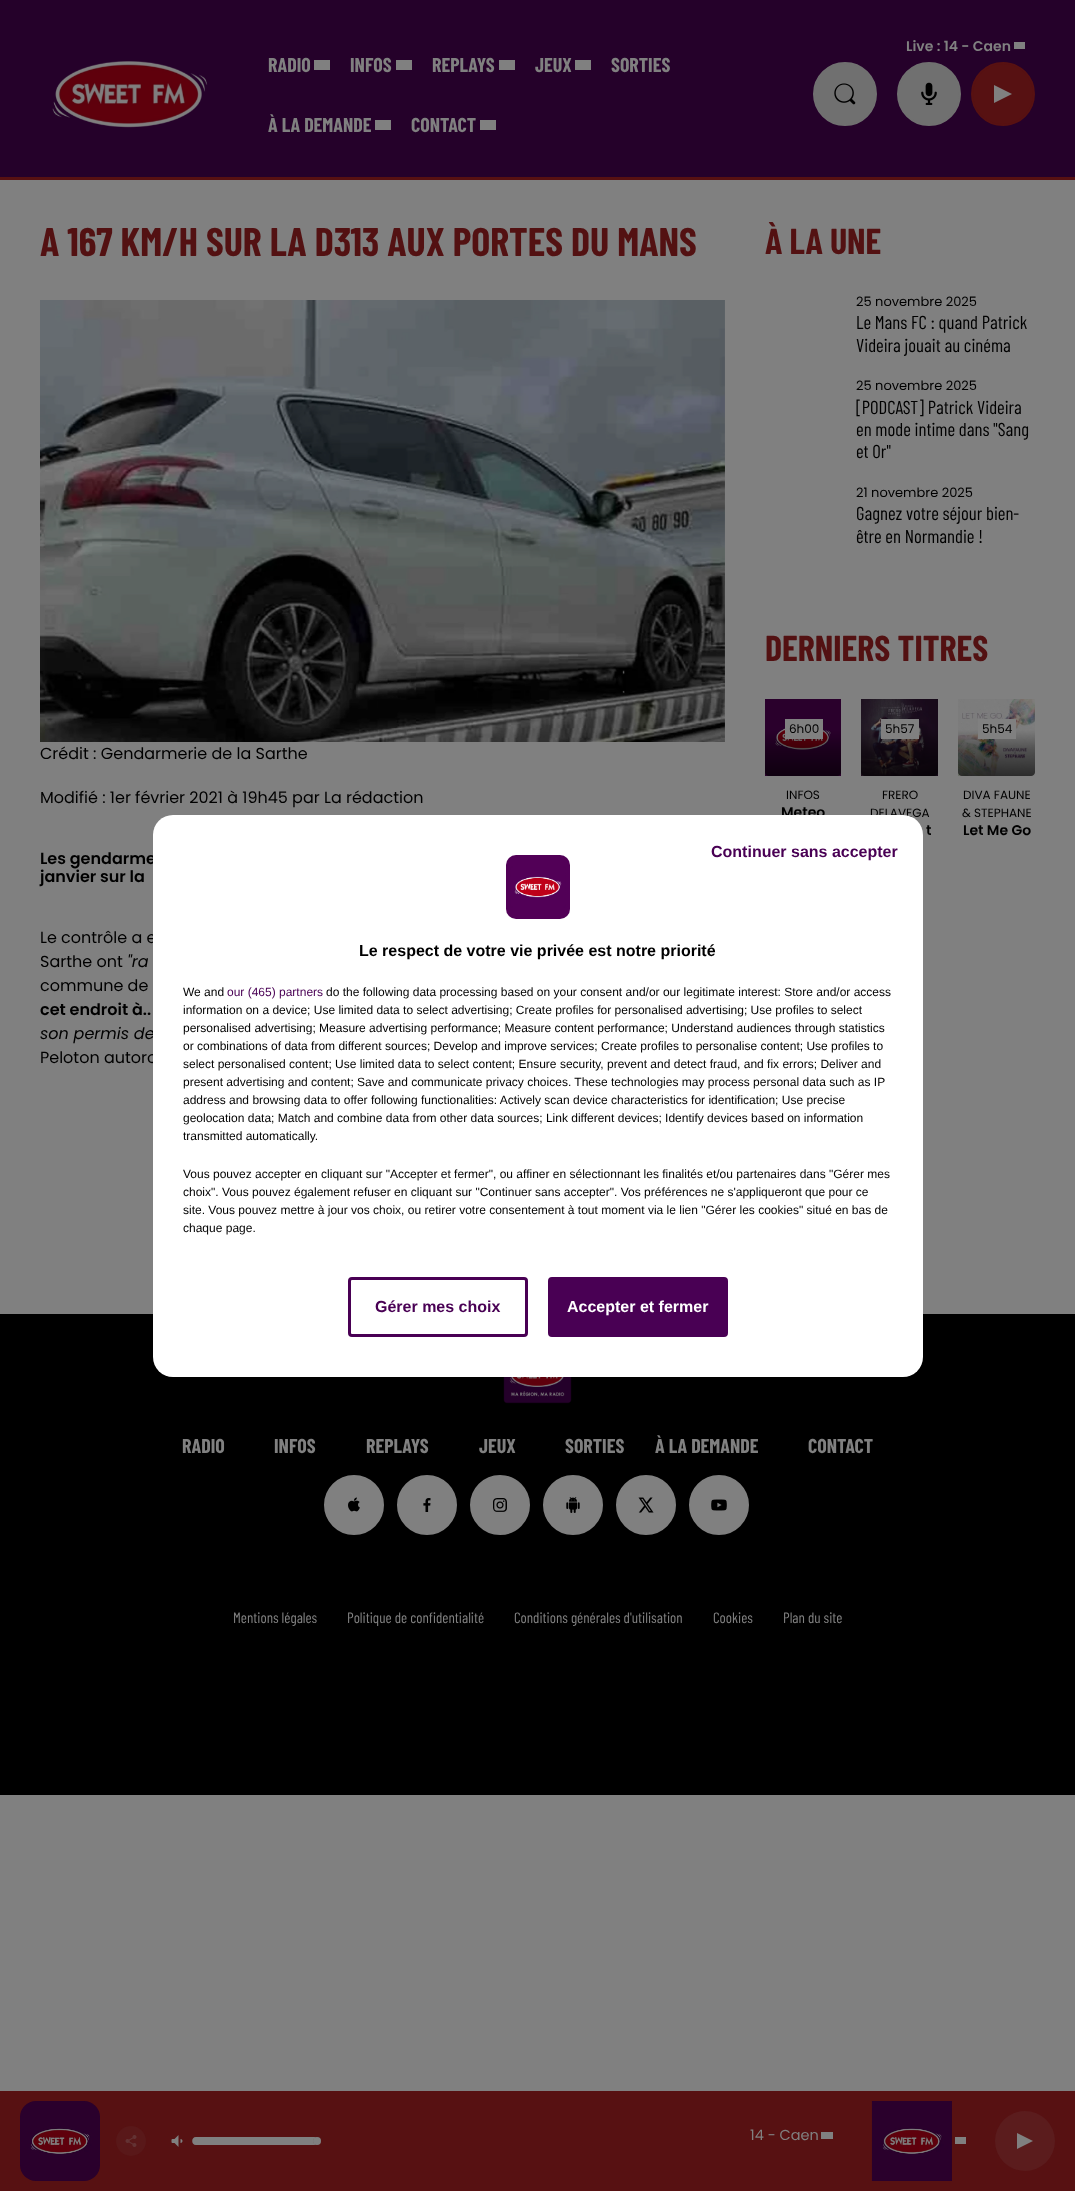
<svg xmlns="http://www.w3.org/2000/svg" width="1075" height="2191">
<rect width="100%" height="100%" fill="#808080"/>
<rect width="1075" height="177" fill="#25012a"/>
<rect y="177" width="1075" height="3" fill="#571112"/>
<text x="906" y="51" style="font-family:Poppins;font-size:14px;font-weight:600;fill:#808080">Live : 14 - Caen</text>
<rect x="1014" y="42" width="11" height="7" fill="#808080"/>
<circle cx="929" cy="94" r="31" fill="#707070" stroke="#707070" stroke-width="2"/>
<image x="921" y="82" width="16" height="23" href="media/1.png"/>
<circle cx="1003" cy="94" r="31" fill="#571112" stroke="#571112" stroke-width="2"/>
<path d="M1012 94l-18 9v-18z" fill="#808080"/>
<image x="52" y="61" width="156" height="67" href="media/2.png"/>
<text x="268" y="72" style="font-family:Barlow Condensed;font-size:20px;font-weight:bold;fill:#808080">RADIO</text>
<rect x="314" y="60" width="16" height="10" fill="#808080"/>
<text x="350" y="72" style="font-family:Barlow Condensed;font-size:20px;font-weight:bold;fill:#808080">INFOS</text>
<rect x="396" y="60" width="16" height="10" fill="#808080"/>
<text x="432" y="72" style="font-family:Barlow Condensed;font-size:20px;font-weight:bold;fill:#808080">REPLAYS</text>
<rect x="499" y="60" width="16" height="10" fill="#808080"/>
<text x="535" y="72" style="font-family:Barlow Condensed;font-size:20px;font-weight:bold;fill:#808080">JEUX</text>
<rect x="575" y="60" width="16" height="10" fill="#808080"/>
<text x="611" y="72" style="font-family:Barlow Condensed;font-size:20px;font-weight:bold;fill:#808080">SORTIES</text>
<text x="268" y="132" style="font-family:Barlow Condensed;font-size:20px;font-weight:bold;fill:#808080">À LA DEMANDE</text>
<rect x="375" y="120" width="16" height="10" fill="#808080"/>
<text x="411" y="132" style="font-family:Barlow Condensed;font-size:20px;font-weight:bold;fill:#808080">CONTACT</text>
<rect x="480" y="120" width="16" height="10" fill="#808080"/>
<circle cx="845" cy="94" r="31" fill="#707070" stroke="#707070" stroke-width="2"/>
<image x="834" y="83" width="22" height="22" href="media/3.png"/>
<text x="40" y="256" style="font-family:Barlow Condensed;font-size:40px;font-weight:bold;fill:#531112">A 167 KM/H SUR LA D313 AUX PORTES DU MANS</text>
<image x="40" y="300" width="685" height="442" href="media/4.png"/>
<text x="40" y="759" style="font-family:Poppins;font-size:16px;fill:#000">Crédit : Gendarmerie de la Sarthe</text>
<text x="40" y="803" style="font-family:Poppins;font-size:16px;fill:#000">Modifié : 1er février 2021 à 19h45 par La rédaction</text>
<text x="40" y="864" style="font-family:Poppins;font-size:16px;font-weight:600;fill:#000">Les gendarme</text>
<text x="40" y="882" style="font-family:Poppins;font-size:16px;font-weight:600;fill:#000">janvier sur la</text>
<text x="40" y="943" style="font-family:Poppins;font-size:16px;fill:#000">Le contrôle a e</text>
<text x="40" y="967" style="font-family:Poppins;font-size:16px;fill:#000">Sarthe ont</text>
<text x="127" y="967" style="font-family:Poppins;font-size:16px;font-style:italic;fill:#000">"ra</text>
<text x="40" y="991" style="font-family:Poppins;font-size:16px;fill:#000">commune de</text>
<text x="40" y="1015" style="font-family:Poppins;font-size:16px;font-weight:600;fill:#000">cet endroit à..</text>
<text x="40" y="1039" style="font-family:Poppins;font-size:16px;font-style:italic;fill:#000">son permis de</text>
<text x="40" y="1063" style="font-family:Poppins;font-size:16px;fill:#000">Peloton autoro</text>
<text x="765" y="254" style="font-family:Barlow Condensed;font-size:36px;font-weight:bold;fill:#531112">À LA UNE</text>
<text x="856" y="306" style="font-family:Poppins;font-size:13px;fill:#000">25 novembre 2025</text>
<text x="856" y="329" style="font-family:Barlow Condensed;font-size:18.75px;fill:#000">Le Mans FC : quand Patrick</text>
<text x="856" y="352" style="font-family:Barlow Condensed;font-size:18.75px;fill:#000">Videira jouait au cinéma</text>
<text x="856" y="390" style="font-family:Poppins;font-size:13px;fill:#000">25 novembre 2025</text>
<text x="856" y="414" style="font-family:Barlow Condensed;font-size:18.75px;fill:#000">[PODCAST] Patrick Videira</text>
<text x="856" y="436" style="font-family:Barlow Condensed;font-size:18.75px;fill:#000">en mode intime dans "Sang</text>
<text x="856" y="458" style="font-family:Barlow Condensed;font-size:18.75px;fill:#000">et Or"</text>
<text x="856" y="497" style="font-family:Poppins;font-size:13px;fill:#000">21 novembre 2025</text>
<text x="856" y="520" style="font-family:Barlow Condensed;font-size:18.75px;fill:#000">Gagnez votre séjour bien-</text>
<text x="856" y="543" style="font-family:Barlow Condensed;font-size:18.75px;fill:#000">être en Normandie !</text>
<text x="765" y="661" style="font-family:Barlow Condensed;font-size:36px;font-weight:bold;fill:#531112">DERNIERS TITRES</text>
<image x="765" y="699" width="76" height="77" href="media/5.png"/>
<rect x="785" y="719" width="38" height="20" fill="#808080"/>
<text x="789" y="733" style="font-family:Poppins;font-size:12px;fill:#000">6h00</text>
<text x="786" y="799" style="font-family:Poppins;font-size:12px;fill:#000">INFOS</text>
<text x="781" y="817" style="font-family:Poppins;font-size:14px;font-weight:600;fill:#000">Meteo</text>
<image x="861" y="699" width="77" height="77" href="media/6.png"/>
<rect x="881" y="719" width="38" height="20" fill="#808080"/>
<text x="885" y="733" style="font-family:Poppins;font-size:12px;fill:#000">5h57</text>
<text x="882" y="799" style="font-family:Poppins;font-size:12px;fill:#000">FRERO</text>
<text x="870" y="817" style="font-family:Poppins;font-size:12px;fill:#000">DELAVEGA</text>
<text x="926" y="835" style="font-family:Poppins;font-size:14px;font-weight:600;fill:#000">t</text>
<image x="958" y="699" width="77" height="77" href="media/7.png"/>
<rect x="978" y="719" width="38" height="20" fill="#808080"/>
<text x="982" y="733" style="font-family:Poppins;font-size:12px;fill:#000">5h54</text>
<text x="963" y="799" style="font-family:Poppins;font-size:12px;fill:#000">DIVA FAUNE</text>
<text x="962" y="817" style="font-family:Poppins;font-size:12px;fill:#000">&amp; STEPHANE</text>
<text x="963" y="835" style="font-family:Poppins;font-size:14px;font-weight:600;fill:#000">Let Me Go</text>
<rect y="1314" width="1075" height="481" fill="#000"/>
<image x="503" y="1377" width="69" height="27" href="media/8.png"/>
<text x="182" y="1453" style="font-family:Barlow Condensed;font-size:20px;font-weight:bold;fill:#808080">RADIO</text>
<text x="274" y="1453" style="font-family:Barlow Condensed;font-size:20px;font-weight:bold;fill:#808080">INFOS</text>
<text x="366" y="1453" style="font-family:Barlow Condensed;font-size:20px;font-weight:bold;fill:#808080">REPLAYS</text>
<text x="479" y="1453" style="font-family:Barlow Condensed;font-size:20px;font-weight:bold;fill:#808080">JEUX</text>
<text x="565" y="1453" style="font-family:Barlow Condensed;font-size:20px;font-weight:bold;fill:#808080">SORTIES</text>
<text x="655" y="1453" style="font-family:Barlow Condensed;font-size:20px;font-weight:bold;fill:#808080">À LA DEMANDE</text>
<text x="808" y="1453" style="font-family:Barlow Condensed;font-size:20px;font-weight:bold;fill:#808080">CONTACT</text>
<circle cx="354" cy="1505" r="29" fill="#808080" stroke="#808080" stroke-width="2"/>
<image x="348" y="1497" width="12" height="15" href="media/9.png"/>
<circle cx="427" cy="1505" r="29" fill="#808080" stroke="#808080" stroke-width="2"/>
<image x="423" y="1498" width="8" height="14" href="media/10.png"/>
<circle cx="500" cy="1505" r="29" fill="#808080" stroke="#808080" stroke-width="2"/>
<image x="493" y="1498" width="14" height="14" href="media/11.png"/>
<circle cx="573" cy="1505" r="29" fill="#808080" stroke="#808080" stroke-width="2"/>
<image x="566" y="1497" width="14" height="16" href="media/12.png"/>
<circle cx="646" cy="1505" r="29" fill="#808080" stroke="#808080" stroke-width="2"/>
<image x="638" y="1497" width="16" height="16" href="media/13.png"/>
<circle cx="719" cy="1505" r="29" fill="#808080" stroke="#808080" stroke-width="2"/>
<image x="711" y="1499" width="16" height="12" href="media/14.png"/>
<text x="233" y="1623" style="font-family:Barlow Condensed;font-size:15px;fill:#808080">Mentions légales</text>
<text x="347" y="1623" style="font-family:Barlow Condensed;font-size:15px;fill:#808080">Politique de confidentialité</text>
<text x="514" y="1623" style="font-family:Barlow Condensed;font-size:15px;fill:#808080">Conditions générales d'utilisation</text>
<text x="713" y="1623" style="font-family:Barlow Condensed;font-size:15px;fill:#808080">Cookies</text>
<text x="783" y="1623" style="font-family:Barlow Condensed;font-size:15px;fill:#808080">Plan du site</text>
<rect y="2091" width="1075" height="100" fill="#571112"/>
<image x="20" y="2101" width="80" height="80" href="media/15.png"/>
<circle cx="131" cy="2141" r="15" fill="#591819"/>
<image x="125" y="2135" width="12" height="12" href="media/16.png"/>
<image x="171" y="2135" width="12" height="12" href="media/17.png"/>
<rect x="192" y="2137" width="129" height="8" rx="4" fill="#5f2728"/>
<path d="M196 2137c-5 0-5 8 0 8h121c-5 0-5-8 0-8z" fill="#808080"/>
<circle cx="317" cy="2141" r="4" fill="#808080"/>
<text x="750" y="2140" style="font-family:Poppins;font-size:14.5px;fill:#808080">14 - Caen</text>
<rect x="821" y="2132" width="12" height="7" fill="#808080"/>
<image x="871" y="2101" width="81" height="80" href="media/18.png"/>
<rect x="955" y="2137" width="11" height="7" fill="#808080"/>
<circle cx="1025" cy="2141" r="30" fill="#5b1c1d"/>
<path d="M1033 2141l-16 8v-16z" fill="#808080"/>
<rect x="153" y="815" width="770" height="562" rx="20" fill="#fff"/>
<text x="711" y="857" style="font-family:Liberation Sans;font-size:16px;font-weight:bold;fill:#490054">Continuer sans accepter</text>
<rect x="349.5" y="1278.5" width="177" height="57" rx="2.5" fill="none" stroke="#490054" stroke-width="3"/>
<text x="375" y="1312" style="font-family:Liberation Sans;font-size:16px;font-weight:bold;fill:#490054">Gérer mes choix</text>
<rect x="549.5" y="1278.5" width="177" height="57" rx="2.5" fill="#490054" stroke="#490054" stroke-width="3"/>
<text x="567" y="1312" style="font-family:Liberation Sans;font-size:16px;font-weight:bold;fill:#fff">Accepter et fermer</text>
<image x="506" y="855" width="64" height="64" href="media/19.png"/>
<text x="359" y="956" style="font-family:Liberation Sans;font-size:16px;font-weight:bold;fill:#000">Le respect de votre vie privée est notre priorité</text>
<text x="183" y="996" style="font-family:Liberation Sans;font-size:12px;fill:#000">We and</text>
<text x="227" y="996" style="font-family:Liberation Sans;font-size:12px;fill:#490054">our (465) partners</text>
<text x="326" y="996" style="font-family:Liberation Sans;font-size:12px;fill:#000">do the following data processing based on your consent and/or our legitimate interest: Store and/or access</text>
<text x="183" y="1014" style="font-family:Liberation Sans;font-size:12px;fill:#000">information on a device; Use limited data to select advertising; Create profiles for personalised advertising; Use profiles to select</text>
<text x="183" y="1032" style="font-family:Liberation Sans;font-size:12px;fill:#000">personalised advertising; Measure advertising performance; Measure content performance; Understand audiences through statistics</text>
<text x="183" y="1050" style="font-family:Liberation Sans;font-size:12px;fill:#000">or combinations of data from different sources; Develop and improve services; Create profiles to personalise content; Use profiles to</text>
<text x="183" y="1068" style="font-family:Liberation Sans;font-size:12px;fill:#000">select personalised content; Use limited data to select content; Ensure security, prevent and detect fraud, and fix errors; Deliver and</text>
<text x="183" y="1086" style="font-family:Liberation Sans;font-size:12px;fill:#000">present advertising and content; Save and communicate privacy choices. These technologies may process personal data such as IP</text>
<text x="183" y="1104" style="font-family:Liberation Sans;font-size:12px;fill:#000">address and browsing data to offer following functionalities: Actively scan device characteristics for identification; Use precise</text>
<text x="183" y="1122" style="font-family:Liberation Sans;font-size:12px;fill:#000">geolocation data; Match and combine data from other data sources; Link different devices; Identify devices based on information</text>
<text x="183" y="1140" style="font-family:Liberation Sans;font-size:12px;fill:#000">transmitted automatically.</text>
<text x="183" y="1178" style="font-family:Liberation Sans;font-size:12px;fill:#000">Vous pouvez accepter en cliquant sur "Accepter et fermer", ou affiner en sélectionnant les finalités et/ou partenaires dans "Gérer mes</text>
<text x="183" y="1196" style="font-family:Liberation Sans;font-size:12px;fill:#000">choix". Vous pouvez également refuser en cliquant sur "Continuer sans accepter". Vos préférences ne s'appliqueront que pour ce</text>
<text x="183" y="1214" style="font-family:Liberation Sans;font-size:12px;fill:#000">site. Vous pouvez mettre à jour vos choix, ou retirer votre consentement à tout moment via le lien "Gérer les cookies" situé en bas de</text>
<text x="183" y="1232" style="font-family:Liberation Sans;font-size:12px;fill:#000">chaque page.</text>
</svg>
